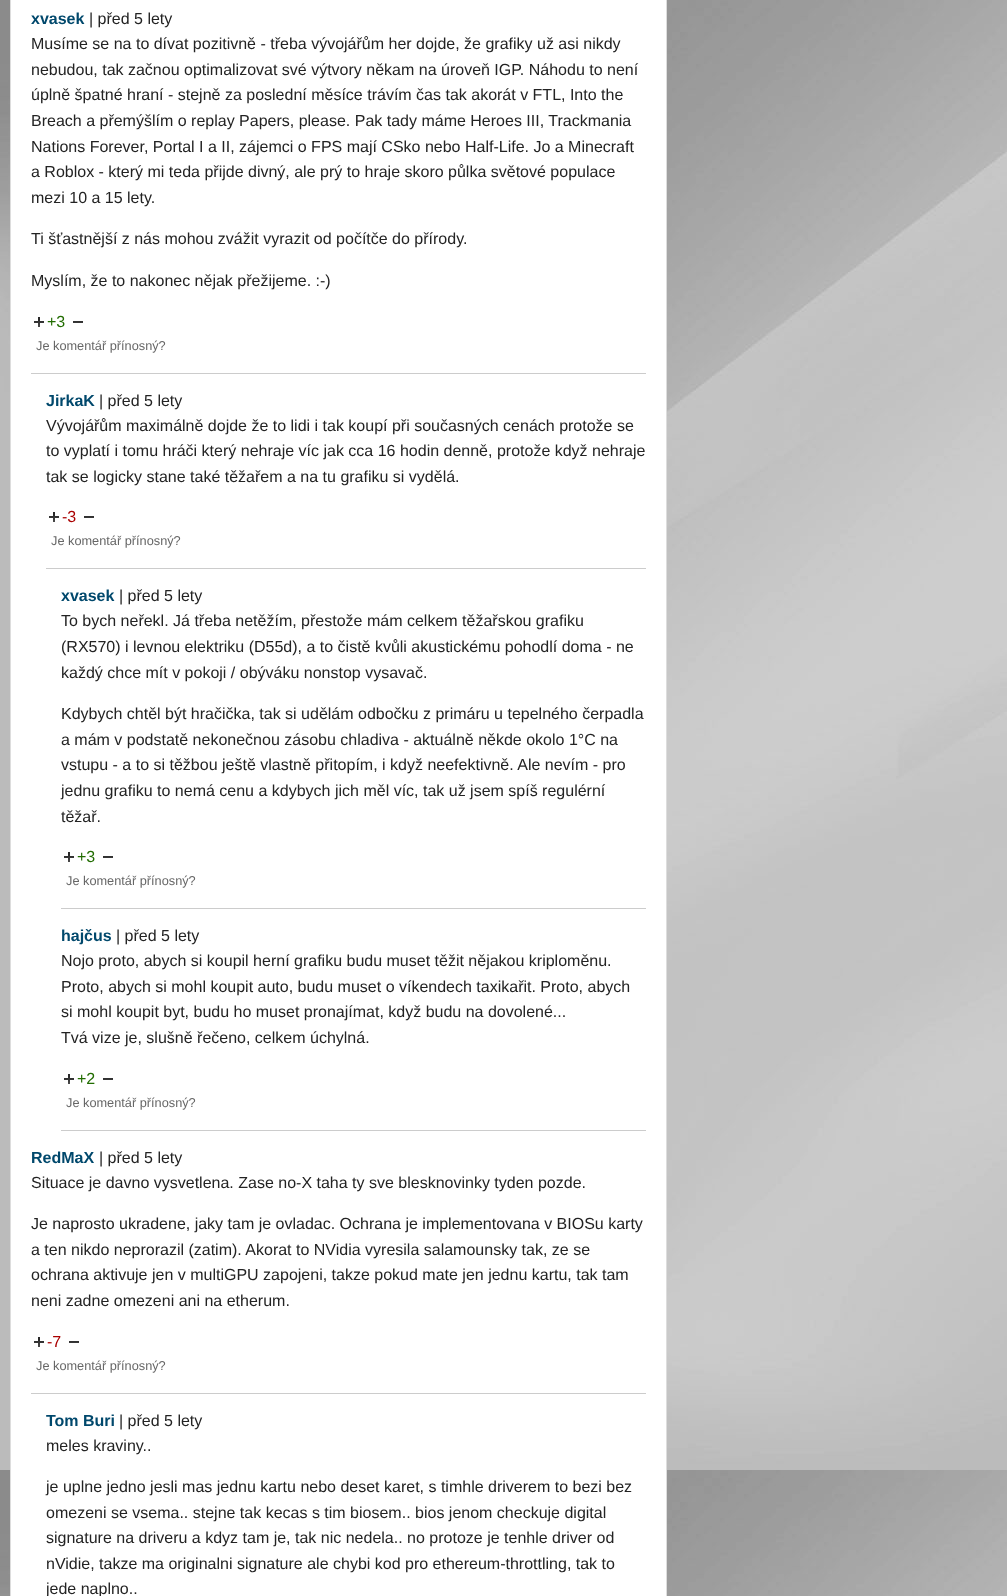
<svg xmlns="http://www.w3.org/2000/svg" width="1007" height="1596">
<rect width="100%" height="100%" fill="#fff"/>
<image x="0" y="0" width="1007" height="1596" href="media/1.png"/>
<rect x="10.5" y="-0.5" width="656" height="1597" fill="#fff" stroke="#ddd"/>
<rect x="31" y="373" width="615" height="1" fill="#ccc"/>
<text x="31" y="24" style="font-family:Liberation Sans;font-size:16px;font-weight:bold;fill:#00486c">xvasek</text>
<text x="89" y="24" style="font-family:Liberation Sans;font-size:16px;fill:#232323">| před 5 lety</text>
<text x="31" y="49" style="font-family:Liberation Sans;font-size:16px;fill:#232323">Musíme se na to dívat pozitivně - třeba vývojářům her dojde, že grafiky už asi nikdy</text>
<text x="31" y="75" style="font-family:Liberation Sans;font-size:16px;fill:#232323">nebudou, tak začnou optimalizovat své výtvory někam na úroveň IGP. Náhodu to není</text>
<text x="31" y="100" style="font-family:Liberation Sans;font-size:16px;fill:#232323">úplně špatné hraní - stejně za poslední měsíce trávím čas tak akorát v FTL, Into the</text>
<text x="31" y="126" style="font-family:Liberation Sans;font-size:16px;fill:#232323">Breach a přemýšlím o replay Papers, please. Pak tady máme Heroes III, Trackmania</text>
<text x="31" y="152" style="font-family:Liberation Sans;font-size:16px;fill:#232323">Nations Forever, Portal I a II, zájemci o FPS mají CSko nebo Half-Life. Jo a Minecraft</text>
<text x="31" y="177" style="font-family:Liberation Sans;font-size:16px;fill:#232323">a Roblox - který mi teda přijde divný, ale prý to hraje skoro půlka světové populace</text>
<text x="31" y="203" style="font-family:Liberation Sans;font-size:16px;fill:#232323">mezi 10 a 15 lety.</text>
<text x="31" y="244" style="font-family:Liberation Sans;font-size:16px;fill:#232323">Ti šťastnější z nás mohou zvážit vyrazit od počítče do přírody.</text>
<text x="31" y="286" style="font-family:Liberation Sans;font-size:16px;fill:#232323">Myslím, že to nakonec nějak přežijeme. :-)</text>
<image x="34" y="317" width="10" height="10" href="media/2.png"/>
<text x="47" y="327" style="font-family:Liberation Sans;font-size:16px;fill:#216c00">+3</text>
<image x="73" y="321" width="10" height="2" href="media/3.png"/>
<text x="36" y="350" style="font-family:Liberation Sans;font-size:12.75px;fill:#666">Je komentář přínosný?</text>
<rect x="46" y="568" width="600" height="1" fill="#ccc"/>
<text x="46" y="406" style="font-family:Liberation Sans;font-size:16px;font-weight:bold;fill:#00486c">JirkaK</text>
<text x="99" y="406" style="font-family:Liberation Sans;font-size:16px;fill:#232323">| před 5 lety</text>
<text x="46" y="431" style="font-family:Liberation Sans;font-size:16px;fill:#232323">Vývojářům maximálně dojde že to lidi i tak koupí při současných cenách protože se</text>
<text x="46" y="456" style="font-family:Liberation Sans;font-size:16px;fill:#232323">to vyplatí i tomu hráči který nehraje víc jak cca 16 hodin denně, protože když nehraje</text>
<text x="46" y="482" style="font-family:Liberation Sans;font-size:16px;fill:#232323">tak se logicky stane také těžařem a na tu grafiku si vydělá.</text>
<image x="49" y="512" width="10" height="10" href="media/2.png"/>
<text x="62" y="522" style="font-family:Liberation Sans;font-size:16px;fill:#a00">-3</text>
<image x="84" y="516" width="10" height="2" href="media/3.png"/>
<text x="51" y="545" style="font-family:Liberation Sans;font-size:12.75px;fill:#666">Je komentář přínosný?</text>
<rect x="61" y="908" width="585" height="1" fill="#ccc"/>
<text x="61" y="601" style="font-family:Liberation Sans;font-size:16px;font-weight:bold;fill:#00486c">xvasek</text>
<text x="119" y="601" style="font-family:Liberation Sans;font-size:16px;fill:#232323">| před 5 lety</text>
<text x="61" y="626" style="font-family:Liberation Sans;font-size:16px;fill:#232323">To bych neřekl. Já třeba netěžím, přestože mám celkem těžařskou grafiku</text>
<text x="61" y="652" style="font-family:Liberation Sans;font-size:16px;fill:#232323">(RX570) i levnou elektriku (D55d), a to čistě kvůli akustickému pohodlí doma - ne</text>
<text x="61" y="678" style="font-family:Liberation Sans;font-size:16px;fill:#232323">každý chce mít v pokoji / obýváku nonstop vysavač.</text>
<text x="61" y="719" style="font-family:Liberation Sans;font-size:16px;fill:#232323">Kdybych chtěl být hračička, tak si udělám odbočku z primáru u tepelného čerpadla</text>
<text x="61" y="745" style="font-family:Liberation Sans;font-size:16px;fill:#232323">a mám v podstatě nekonečnou zásobu chladiva - aktuálně někde okolo 1°C na</text>
<text x="61" y="770" style="font-family:Liberation Sans;font-size:16px;fill:#232323">vstupu - a to si těžbou ještě vlastně přitopím, i když neefektivně. Ale nevím - pro</text>
<text x="61" y="796" style="font-family:Liberation Sans;font-size:16px;fill:#232323">jednu grafiku to nemá cenu a kdybych jich měl víc, tak už jsem spíš regulérní</text>
<text x="61" y="822" style="font-family:Liberation Sans;font-size:16px;fill:#232323">těžař.</text>
<image x="64" y="852" width="10" height="10" href="media/2.png"/>
<text x="77" y="862" style="font-family:Liberation Sans;font-size:16px;fill:#216c00">+3</text>
<image x="103" y="856" width="10" height="2" href="media/3.png"/>
<text x="66" y="885" style="font-family:Liberation Sans;font-size:12.75px;fill:#666">Je komentář přínosný?</text>
<rect x="61" y="1130" width="585" height="1" fill="#ccc"/>
<text x="61" y="941" style="font-family:Liberation Sans;font-size:16px;font-weight:bold;fill:#00486c">hajčus</text>
<text x="116" y="941" style="font-family:Liberation Sans;font-size:16px;fill:#232323">| před 5 lety</text>
<text x="61" y="966" style="font-family:Liberation Sans;font-size:16px;fill:#232323">Nojo proto, abych si koupil herní grafiku budu muset těžit nějakou kriploměnu.</text>
<text x="61" y="992" style="font-family:Liberation Sans;font-size:16px;fill:#232323">Proto, abych si mohl koupit auto, budu muset o víkendech taxikařit. Proto, abych</text>
<text x="61" y="1017" style="font-family:Liberation Sans;font-size:16px;fill:#232323">si mohl koupit byt, budu ho muset pronajímat, když budu na dovolené...</text>
<text x="61" y="1043" style="font-family:Liberation Sans;font-size:16px;fill:#232323">Tvá vize je, slušně řečeno, celkem úchylná.</text>
<image x="64" y="1074" width="10" height="10" href="media/2.png"/>
<text x="77" y="1084" style="font-family:Liberation Sans;font-size:16px;fill:#216c00">+2</text>
<image x="103" y="1078" width="10" height="2" href="media/3.png"/>
<text x="66" y="1107" style="font-family:Liberation Sans;font-size:12.75px;fill:#666">Je komentář přínosný?</text>
<rect x="31" y="1393" width="615" height="1" fill="#ccc"/>
<text x="31" y="1163" style="font-family:Liberation Sans;font-size:16px;font-weight:bold;fill:#00486c">RedMaX</text>
<text x="99" y="1163" style="font-family:Liberation Sans;font-size:16px;fill:#232323">| před 5 lety</text>
<text x="31" y="1188" style="font-family:Liberation Sans;font-size:16px;fill:#232323">Situace je davno vysvetlena. Zase no-X taha ty sve blesknovinky tyden pozde.</text>
<text x="31" y="1229" style="font-family:Liberation Sans;font-size:16px;fill:#232323">Je naprosto ukradene, jaky tam je ovladac. Ochrana je implementovana v BIOSu karty</text>
<text x="31" y="1255" style="font-family:Liberation Sans;font-size:16px;fill:#232323">a ten nikdo neprorazil (zatim). Akorat to NVidia vyresila salamounsky tak, ze se</text>
<text x="31" y="1280" style="font-family:Liberation Sans;font-size:16px;fill:#232323">ochrana aktivuje jen v multiGPU zapojeni, takze pokud mate jen jednu kartu, tak tam</text>
<text x="31" y="1306" style="font-family:Liberation Sans;font-size:16px;fill:#232323">neni zadne omezeni ani na etherum.</text>
<image x="34" y="1337" width="10" height="10" href="media/2.png"/>
<text x="47" y="1347" style="font-family:Liberation Sans;font-size:16px;fill:#a00">-7</text>
<image x="69" y="1341" width="10" height="2" href="media/3.png"/>
<text x="36" y="1370" style="font-family:Liberation Sans;font-size:12.75px;fill:#666">Je komentář přínosný?</text>
<text x="46" y="1426" style="font-family:Liberation Sans;font-size:16px;font-weight:bold;fill:#00486c">Tom Buri</text>
<text x="119" y="1426" style="font-family:Liberation Sans;font-size:16px;fill:#232323">| před 5 lety</text>
<text x="46" y="1451" style="font-family:Liberation Sans;font-size:16px;fill:#232323">meles kraviny..</text>
<text x="46" y="1492" style="font-family:Liberation Sans;font-size:16px;fill:#232323">je uplne jedno jesli mas jednu kartu nebo deset karet, s timhle driverem to bezi bez</text>
<text x="46" y="1518" style="font-family:Liberation Sans;font-size:16px;fill:#232323">omezeni se vsema.. stejne tak kecas s tim biosem.. bios jenom checkuje digital</text>
<text x="46" y="1543" style="font-family:Liberation Sans;font-size:16px;fill:#232323">signature na driveru a kdyz tam je, tak nic nedela.. no protoze je tenhle driver od</text>
<text x="46" y="1569" style="font-family:Liberation Sans;font-size:16px;fill:#232323">nVidie, takze ma originalni signature ale chybi kod pro ethereum-throttling, tak to</text>
<text x="46" y="1594" style="font-family:Liberation Sans;font-size:16px;fill:#232323">jede naplno..</text>
</svg>
